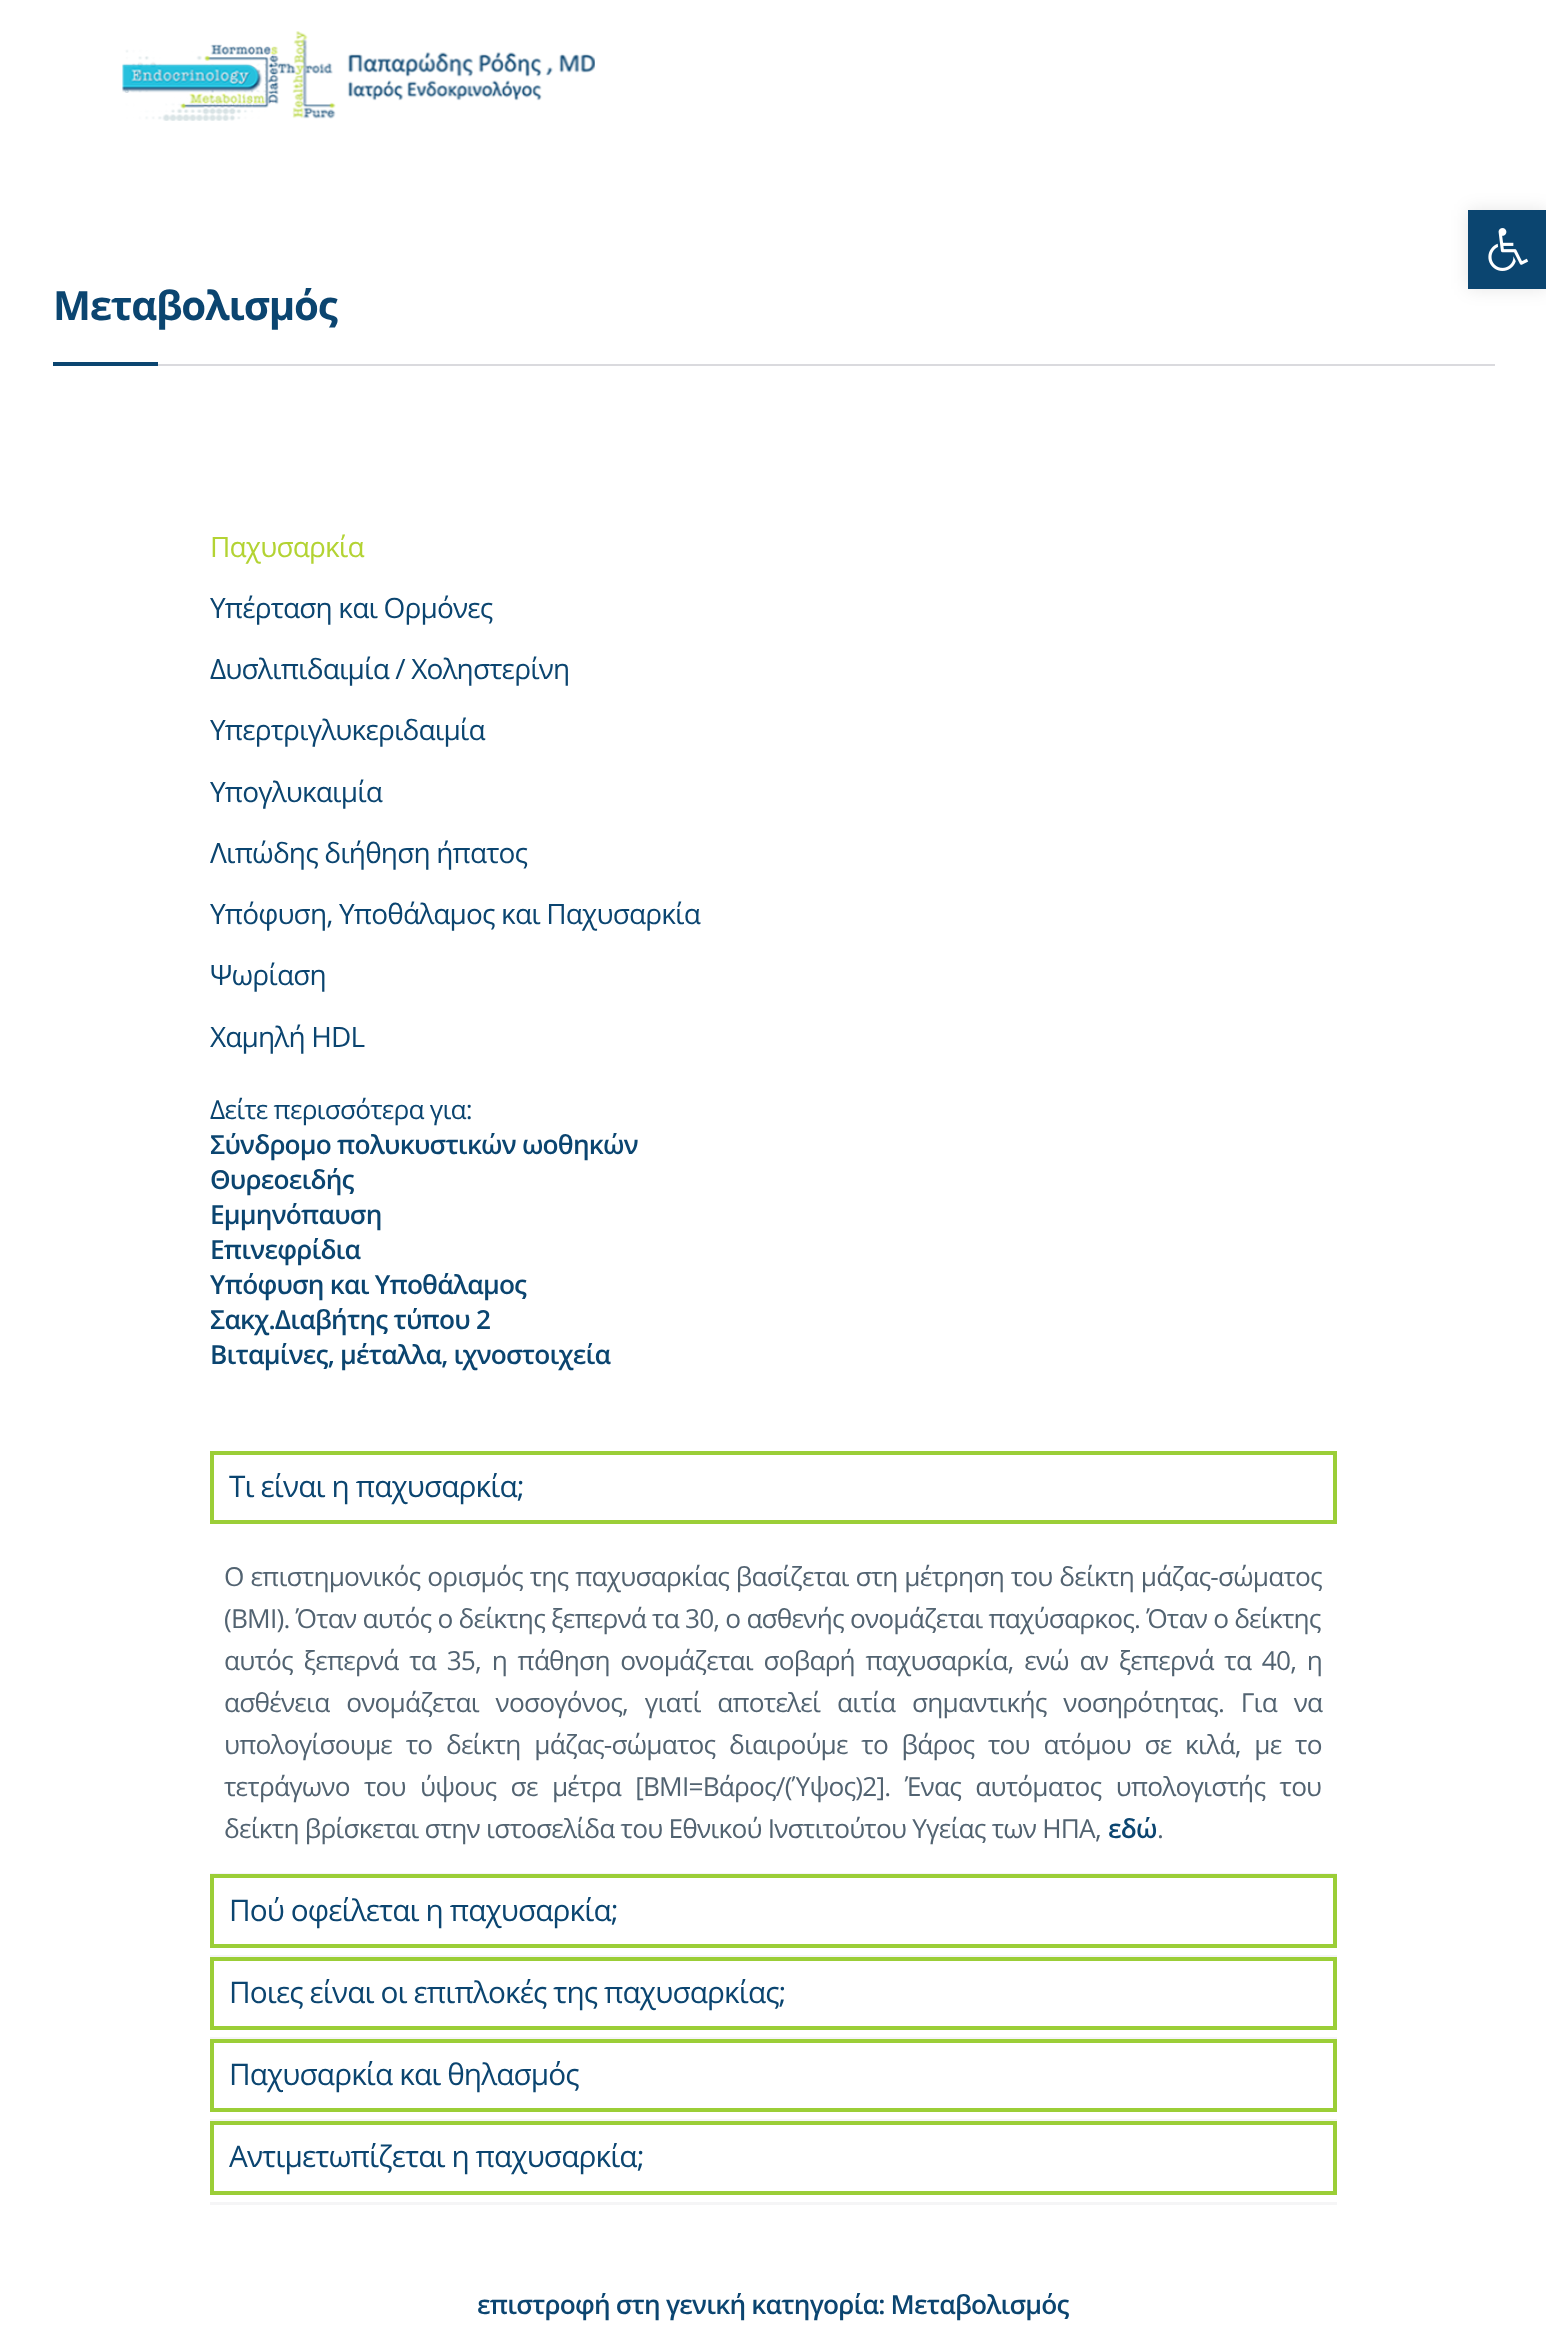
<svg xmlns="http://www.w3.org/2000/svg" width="1546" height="2340">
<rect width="100%" height="100%" fill="#fff"/>
<rect x="1468" y="210" width="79" height="79" fill="#0000001a" filter="blur(9px)"/>
<rect x="1468" y="210" width="78" height="79" fill="#0b4570"/>
<image x="1488" y="228" width="41" height="43" href="media/1.png"/>
<image x="122" y="31" width="473" height="90" href="media/2.png"/>
<rect x="158" y="364" width="1337" height="2" fill="#dadade"/>
<text x="53" y="320" style="font-family:Open Sans;font-size:40.25px;font-weight:bold;letter-spacing:-1.25px;fill:#0b4570">Μεταβολισμός</text>
<rect x="53" y="362" width="105" height="4" fill="#0b4570"/>
<text x="210" y="557" style="font-family:Open Sans;font-size:28px;letter-spacing:-0.85px;fill:#b3d333">Παχυσαρκία</text>
<text x="210" y="618" style="font-family:Open Sans;font-size:28px;letter-spacing:-0.85px;fill:#0b4570">Υπέρταση και Ορμόνες</text>
<text x="210" y="679" style="font-family:Open Sans;font-size:28px;letter-spacing:-0.85px;fill:#0b4570">Δυσλιπιδαιμία / Χοληστερίνη</text>
<text x="210" y="740" style="font-family:Open Sans;font-size:28px;letter-spacing:-0.85px;fill:#0b4570">Υπερτριγλυκεριδαιμία</text>
<text x="210" y="802" style="font-family:Open Sans;font-size:28px;letter-spacing:-0.85px;fill:#0b4570">Υπογλυκαιμία</text>
<text x="210" y="863" style="font-family:Open Sans;font-size:28px;letter-spacing:-0.85px;fill:#0b4570">Λιπώδης διήθηση ήπατος</text>
<text x="210" y="924" style="font-family:Open Sans;font-size:28px;letter-spacing:-0.85px;fill:#0b4570">Υπόφυση, Υποθάλαμος και Παχυσαρκία</text>
<text x="210" y="985" style="font-family:Open Sans;font-size:28px;letter-spacing:-0.85px;fill:#0b4570">Ψωρίαση</text>
<text x="210" y="1047" style="font-family:Open Sans;font-size:28px;letter-spacing:-0.85px;fill:#0b4570">Χαμηλή HDL</text>
<text x="210" y="1119" style="font-family:Open Sans;font-size:26.25px;letter-spacing:-0.8px;fill:#0b4570">Δείτε περισσότερα για:</text>
<text x="210" y="1154" style="font-family:Open Sans;font-size:26.25px;font-weight:600;letter-spacing:-0.8px;fill:#0b4570">Σύνδρομο πολυκυστικών ωοθηκών</text>
<text x="210" y="1189" style="font-family:Open Sans;font-size:26.25px;font-weight:600;letter-spacing:-0.8px;fill:#0b4570">Θυρεοειδής</text>
<text x="210" y="1224" style="font-family:Open Sans;font-size:26.25px;font-weight:600;letter-spacing:-0.8px;fill:#0b4570">Εμμηνόπαυση</text>
<text x="210" y="1259" style="font-family:Open Sans;font-size:26.25px;font-weight:600;letter-spacing:-0.8px;fill:#0b4570">Επινεφρίδια</text>
<text x="210" y="1294" style="font-family:Open Sans;font-size:26.25px;font-weight:600;letter-spacing:-0.8px;fill:#0b4570">Υπόφυση και Υποθάλαμος</text>
<text x="210" y="1329" style="font-family:Open Sans;font-size:26.25px;font-weight:600;letter-spacing:-0.8px;fill:#0b4570">Σακχ.Διαβήτης τύπου 2</text>
<text x="210" y="1364" style="font-family:Open Sans;font-size:26.25px;font-weight:600;letter-spacing:-0.8px;fill:#0b4570">Βιταμίνες, μέταλλα, ιχνοστοιχεία</text>
<rect x="210" y="2202" width="1127" height="3" fill="#f5f5f6"/>
<rect x="210" y="1873" width="1127" height="1" fill="#f5f5f6"/>
<rect x="212" y="1453" width="1123" height="69" fill="none" stroke="#9bce37" stroke-width="4"/>
<text x="229" y="1497" style="font-family:Open Sans;font-size:29.75px;letter-spacing:-0.9px;fill:#0b4570">Τι είναι η παχυσαρκία;</text>
<text x="224" y="1586" word-spacing="0.75" style="font-family:Open Sans;font-size:26.25px;letter-spacing:-0.8px;fill:#526371">Ο επιστημονικός ορισμός της παχυσαρκίας βασίζεται στη μέτρηση του δείκτη μάζας-σώματος</text>
<text x="224" y="1628" style="font-family:Open Sans;font-size:26.25px;letter-spacing:-0.8px;fill:#526371">(ΒΜΙ). Όταν αυτός ο δείκτης ξεπερνά τα 30, ο ασθενής ονομάζεται παχύσαρκος. Όταν ο δείκτης</text>
<text x="224" y="1670" word-spacing="4.6" style="font-family:Open Sans;font-size:26.25px;letter-spacing:-0.8px;fill:#526371">αυτός ξεπερνά τα 35, η πάθηση ονομάζεται σοβαρή παχυσαρκία, ενώ αν ξεπερνά τα 40, η</text>
<text x="224" y="1712" word-spacing="10.75" style="font-family:Open Sans;font-size:26.25px;letter-spacing:-0.8px;fill:#526371">ασθένεια ονομάζεται νοσογόνος, γιατί αποτελεί αιτία σημαντικής νοσηρότητας. Για να</text>
<text x="224" y="1754" word-spacing="7.6" style="font-family:Open Sans;font-size:26.25px;letter-spacing:-0.8px;fill:#526371">υπολογίσουμε το δείκτη μάζας-σώματος διαιρούμε το βάρος του ατόμου σε κιλά, με το</text>
<text x="224" y="1796" word-spacing="8.25" style="font-family:Open Sans;font-size:26.25px;letter-spacing:-0.8px;fill:#526371">τετράγωνο του ύψους σε μέτρα [ΒΜΙ=Βάρος/(Ύψος)2]. Ένας αυτόματος υπολογιστής του</text>
<text x="224" y="1838" style="font-family:Open Sans;font-size:26.25px;letter-spacing:-0.8px;fill:#526371">δείκτη βρίσκεται στην ιστοσελίδα του Εθνικού Ινστιτούτου Υγείας των ΗΠΑ,</text>
<text x="1108" y="1838" style="font-family:Open Sans;font-size:26.25px;font-weight:600;letter-spacing:-0.8px;fill:#0b4570">εδώ</text>
<text x="1157" y="1838" style="font-family:Open Sans;font-size:26.25px;letter-spacing:-0.8px;fill:#526371">.</text>
<rect x="210" y="1955" width="1127" height="2" fill="#f5f5f6"/>
<rect x="212" y="1876" width="1123" height="70" fill="none" stroke="#9bce37" stroke-width="4"/>
<text x="229" y="1921" style="font-family:Open Sans;font-size:29.75px;letter-spacing:-0.9px;fill:#0b4570">Πού οφείλεται η παχυσαρκία;</text>
<rect x="210" y="2037" width="1127" height="2" fill="#f5f5f6"/>
<rect x="212" y="1959" width="1123" height="69" fill="none" stroke="#9bce37" stroke-width="4"/>
<text x="229" y="2003" style="font-family:Open Sans;font-size:29.75px;letter-spacing:-0.9px;fill:#0b4570">Ποιες είναι οι επιπλοκές της παχυσαρκίας;</text>
<rect x="210" y="2119" width="1127" height="2" fill="#f5f5f6"/>
<rect x="212" y="2041" width="1123" height="69" fill="none" stroke="#9bce37" stroke-width="4"/>
<text x="229" y="2085" style="font-family:Open Sans;font-size:29.75px;letter-spacing:-0.9px;fill:#0b4570">Παχυσαρκία και θηλασμός</text>
<rect x="212" y="2123" width="1123" height="70" fill="none" stroke="#9bce37" stroke-width="4"/>
<text x="229" y="2167" style="font-family:Open Sans;font-size:29.75px;letter-spacing:-0.9px;fill:#0b4570">Αντιμετωπίζεται η παχυσαρκία;</text>
<text x="477" y="2314" style="font-family:Open Sans;font-size:26.25px;font-weight:600;letter-spacing:-0.8px;fill:#0b4570">επιστροφή στη γενική κατηγορία: Μεταβολισμός</text>
</svg>
